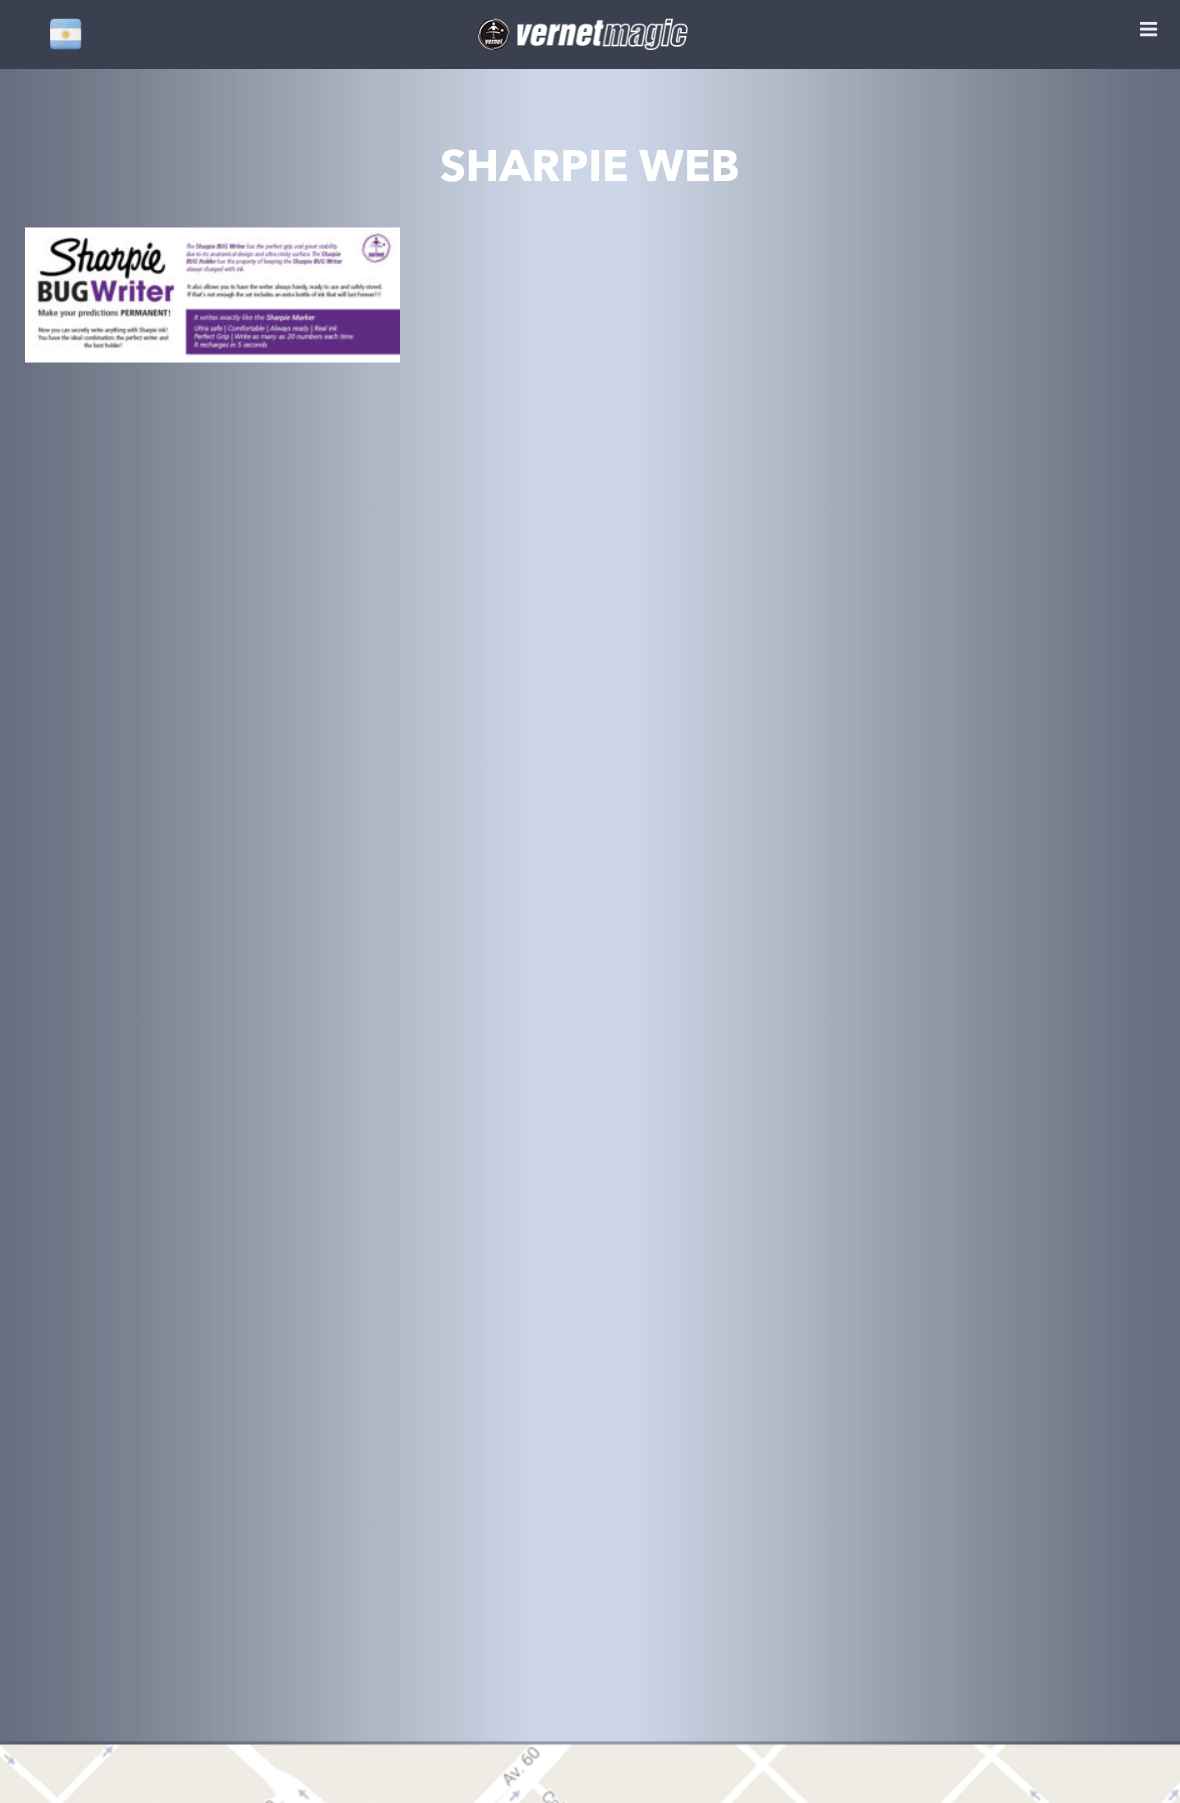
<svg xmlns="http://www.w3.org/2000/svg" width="1180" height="1803">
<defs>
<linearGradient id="g1" gradientUnits="userSpaceOnUse" x1="0" y1="1065" x2="1180" y2="1065"><stop offset="0" stop-color="#676d80"/><stop offset="0" stop-color="#676e80"/><stop offset="0.01" stop-color="#686e81"/><stop offset="0.02" stop-color="#6a7182"/><stop offset="0.02" stop-color="#6a7082"/><stop offset="0.03" stop-color="#6c7283"/><stop offset="0.03" stop-color="#6c7384"/><stop offset="0.04" stop-color="#6d7485"/><stop offset="0.04" stop-color="#6e7485"/><stop offset="0.04" stop-color="#6e7586"/><stop offset="0.05" stop-color="#6f7586"/><stop offset="0.05" stop-color="#6f7687"/><stop offset="0.05" stop-color="#707687"/><stop offset="0.05" stop-color="#707787"/><stop offset="0.06" stop-color="#707787"/><stop offset="0.06" stop-color="#717788"/><stop offset="0.06" stop-color="#717788"/><stop offset="0.06" stop-color="#717888"/><stop offset="0.06" stop-color="#727888"/><stop offset="0.06" stop-color="#727989"/><stop offset="0.07" stop-color="#727989"/><stop offset="0.07" stop-color="#73798a"/><stop offset="0.07" stop-color="#737a8a"/><stop offset="0.08" stop-color="#747b8b"/><stop offset="0.08" stop-color="#757b8b"/><stop offset="0.08" stop-color="#757c8c"/><stop offset="0.08" stop-color="#767c8d"/><stop offset="0.09" stop-color="#777d8e"/><stop offset="0.09" stop-color="#777e8e"/><stop offset="0.1" stop-color="#787f8e"/><stop offset="0.1" stop-color="#797f8f"/><stop offset="0.1" stop-color="#79808f"/><stop offset="0.1" stop-color="#79808f"/><stop offset="0.1" stop-color="#7a8090"/><stop offset="0.1" stop-color="#7a8190"/><stop offset="0.12" stop-color="#7d8393"/><stop offset="0.12" stop-color="#7d8493"/><stop offset="0.12" stop-color="#7e8594"/><stop offset="0.13" stop-color="#808695"/><stop offset="0.13" stop-color="#808796"/><stop offset="0.15" stop-color="#858b9a"/><stop offset="0.15" stop-color="#858c9a"/><stop offset="0.16" stop-color="#868d9b"/><stop offset="0.16" stop-color="#878d9c"/><stop offset="0.16" stop-color="#878d9c"/><stop offset="0.16" stop-color="#878e9c"/><stop offset="0.17" stop-color="#89909e"/><stop offset="0.17" stop-color="#8a909f"/><stop offset="0.17" stop-color="#8a919f"/><stop offset="0.18" stop-color="#8b93a1"/><stop offset="0.18" stop-color="#8d93a1"/><stop offset="0.18" stop-color="#8d94a2"/><stop offset="0.19" stop-color="#8d94a2"/><stop offset="0.19" stop-color="#8e94a3"/><stop offset="0.19" stop-color="#8e95a3"/><stop offset="0.2" stop-color="#9197a5"/><stop offset="0.2" stop-color="#9198a6"/><stop offset="0.22" stop-color="#959caa"/><stop offset="0.22" stop-color="#959daa"/><stop offset="0.22" stop-color="#969dab"/><stop offset="0.25" stop-color="#9ca3b1"/><stop offset="0.25" stop-color="#9ca4b1"/><stop offset="0.25" stop-color="#9da4b2"/><stop offset="0.25" stop-color="#9da5b2"/><stop offset="0.25" stop-color="#9da5b2"/><stop offset="0.25" stop-color="#9ea5b3"/><stop offset="0.26" stop-color="#9fa6b4"/><stop offset="0.26" stop-color="#9fa7b5"/><stop offset="0.26" stop-color="#9fa8b5"/><stop offset="0.27" stop-color="#a1a9b6"/><stop offset="0.27" stop-color="#a2aab8"/><stop offset="0.28" stop-color="#a6aebc"/><stop offset="0.29" stop-color="#a7aebc"/><stop offset="0.29" stop-color="#a7afbd"/><stop offset="0.29" stop-color="#a8afbd"/><stop offset="0.29" stop-color="#a8b0be"/><stop offset="0.32" stop-color="#afb8c6"/><stop offset="0.33" stop-color="#b0b8c7"/><stop offset="0.34" stop-color="#b2bac9"/><stop offset="0.34" stop-color="#b2bbc9"/><stop offset="0.34" stop-color="#b2bbc9"/><stop offset="0.34" stop-color="#b3bbca"/><stop offset="0.34" stop-color="#b3bbca"/><stop offset="0.34" stop-color="#b3bcca"/><stop offset="0.34" stop-color="#b3bcca"/><stop offset="0.34" stop-color="#b4bccb"/><stop offset="0.35" stop-color="#b5bdcc"/><stop offset="0.35" stop-color="#b5becc"/><stop offset="0.35" stop-color="#b5becc"/><stop offset="0.35" stop-color="#b6becd"/><stop offset="0.39" stop-color="#bec7d6"/><stop offset="0.39" stop-color="#bfc7d7"/><stop offset="0.41" stop-color="#c3ccdc"/><stop offset="0.41" stop-color="#c3cddc"/><stop offset="0.41" stop-color="#c3cddc"/><stop offset="0.41" stop-color="#c4cddd"/><stop offset="0.44" stop-color="#c8d2e2"/><stop offset="0.44" stop-color="#c9d2e3"/><stop offset="0.45" stop-color="#cad4e4"/><stop offset="0.45" stop-color="#cbd4e5"/><stop offset="0.45" stop-color="#cbd4e5"/><stop offset="0.45" stop-color="#cbd5e5"/><stop offset="0.46" stop-color="#ccd6e6"/><stop offset="0.46" stop-color="#cdd6e7"/><stop offset="0.53" stop-color="#cdd6e7"/><stop offset="0.53" stop-color="#ccd6e6"/><stop offset="0.54" stop-color="#cbd5e5"/><stop offset="0.54" stop-color="#cbd4e5"/><stop offset="0.54" stop-color="#cbd4e5"/><stop offset="0.54" stop-color="#cad4e4"/><stop offset="0.55" stop-color="#c9d2e3"/><stop offset="0.55" stop-color="#c8d2e2"/><stop offset="0.58" stop-color="#c4cddd"/><stop offset="0.58" stop-color="#c3cddc"/><stop offset="0.58" stop-color="#c3cddc"/><stop offset="0.58" stop-color="#c3ccdc"/><stop offset="0.6" stop-color="#bfc7d7"/><stop offset="0.6" stop-color="#bec7d6"/><stop offset="0.64" stop-color="#b6becd"/><stop offset="0.64" stop-color="#b5becc"/><stop offset="0.65" stop-color="#b5becc"/><stop offset="0.65" stop-color="#b5bdcc"/><stop offset="0.65" stop-color="#b4bccb"/><stop offset="0.65" stop-color="#b3bcca"/><stop offset="0.65" stop-color="#b3bcca"/><stop offset="0.65" stop-color="#b3bbca"/><stop offset="0.66" stop-color="#b3bbca"/><stop offset="0.66" stop-color="#b2bbc9"/><stop offset="0.66" stop-color="#b2bbc9"/><stop offset="0.66" stop-color="#b2bac9"/><stop offset="0.7" stop-color="#a8b0be"/><stop offset="0.7" stop-color="#a8afbd"/><stop offset="0.7" stop-color="#a7afbd"/><stop offset="0.7" stop-color="#a7aebc"/><stop offset="0.71" stop-color="#a4acba"/><stop offset="0.71" stop-color="#a4abb9"/><stop offset="0.72" stop-color="#a3abb9"/><stop offset="0.72" stop-color="#a3aab8"/><stop offset="0.72" stop-color="#a2aab8"/><stop offset="0.72" stop-color="#a2a9b7"/><stop offset="0.73" stop-color="#a1a9b7"/><stop offset="0.73" stop-color="#a1a8b6"/><stop offset="0.73" stop-color="#a0a8b5"/><stop offset="0.73" stop-color="#9fa7b5"/><stop offset="0.74" stop-color="#9ea5b3"/><stop offset="0.74" stop-color="#9da5b2"/><stop offset="0.74" stop-color="#9da4b2"/><stop offset="0.74" stop-color="#9ca4b1"/><stop offset="0.77" stop-color="#969dab"/><stop offset="0.77" stop-color="#959daa"/><stop offset="0.77" stop-color="#959daa"/><stop offset="0.77" stop-color="#959caa"/><stop offset="0.79" stop-color="#9198a6"/><stop offset="0.79" stop-color="#9197a5"/><stop offset="0.81" stop-color="#8e95a3"/><stop offset="0.81" stop-color="#8e94a3"/><stop offset="0.81" stop-color="#8d94a2"/><stop offset="0.81" stop-color="#8b93a1"/><stop offset="0.82" stop-color="#8a919f"/><stop offset="0.82" stop-color="#8a909f"/><stop offset="0.82" stop-color="#8a909f"/><stop offset="0.82" stop-color="#89909e"/><stop offset="0.83" stop-color="#878e9c"/><stop offset="0.83" stop-color="#878d9c"/><stop offset="0.83" stop-color="#868d9b"/><stop offset="0.84" stop-color="#858c9a"/><stop offset="0.84" stop-color="#858b9a"/><stop offset="0.84" stop-color="#848b9a"/><stop offset="0.84" stop-color="#848a99"/><stop offset="0.85" stop-color="#848a99"/><stop offset="0.85" stop-color="#838a98"/><stop offset="0.86" stop-color="#818897"/><stop offset="0.86" stop-color="#808796"/><stop offset="0.86" stop-color="#808695"/><stop offset="0.87" stop-color="#7f8694"/><stop offset="0.88" stop-color="#7d8493"/><stop offset="0.88" stop-color="#7d8393"/><stop offset="0.89" stop-color="#7a8090"/><stop offset="0.89" stop-color="#79808f"/><stop offset="0.9" stop-color="#797f8f"/><stop offset="0.9" stop-color="#777e8e"/><stop offset="0.91" stop-color="#757c8c"/><stop offset="0.91" stop-color="#757b8b"/><stop offset="0.92" stop-color="#747b8b"/><stop offset="0.92" stop-color="#737a8a"/><stop offset="0.93" stop-color="#73798a"/><stop offset="0.93" stop-color="#727989"/><stop offset="0.93" stop-color="#727989"/><stop offset="0.93" stop-color="#727888"/><stop offset="0.93" stop-color="#717888"/><stop offset="0.94" stop-color="#717788"/><stop offset="0.94" stop-color="#707787"/><stop offset="0.94" stop-color="#707787"/><stop offset="0.94" stop-color="#707687"/><stop offset="0.94" stop-color="#6f7687"/><stop offset="0.94" stop-color="#6f7586"/><stop offset="0.95" stop-color="#6e7586"/><stop offset="0.95" stop-color="#6e7485"/><stop offset="0.95" stop-color="#6d7485"/><stop offset="0.97" stop-color="#6a7082"/><stop offset="0.97" stop-color="#6a7182"/><stop offset="0.99" stop-color="#676e80"/><stop offset="0.99" stop-color="#676d7f"/><stop offset="0.99" stop-color="#676d80"/><stop offset="1" stop-color="#676e80"/><stop offset="1" stop-color="#676e80"/></linearGradient>
</defs>
<rect width="100%" height="100%" fill="#fff"/>
<rect y="69" width="1180" height="1678" fill="url(#g1)"/>
<rect width="1180" height="69" fill="#3b4051"/>
<image x="477" y="18" width="211" height="32" href="media/1.png"/>
<image x="1140" y="21" width="18" height="16" href="media/2.png"/>
<image x="50" y="18" width="32" height="32" href="media/3.png"/>
<text x="440" y="181" style="font-family:Avenir Next;font-size:43.75px;font-weight:bold;fill:#fff">SHARPIE WEB</text>
<image x="25" y="227" width="375" height="136" href="media/4.png"/>
<image x="0" y="1741" width="1180" height="62" href="media/5.png"/>
</svg>
